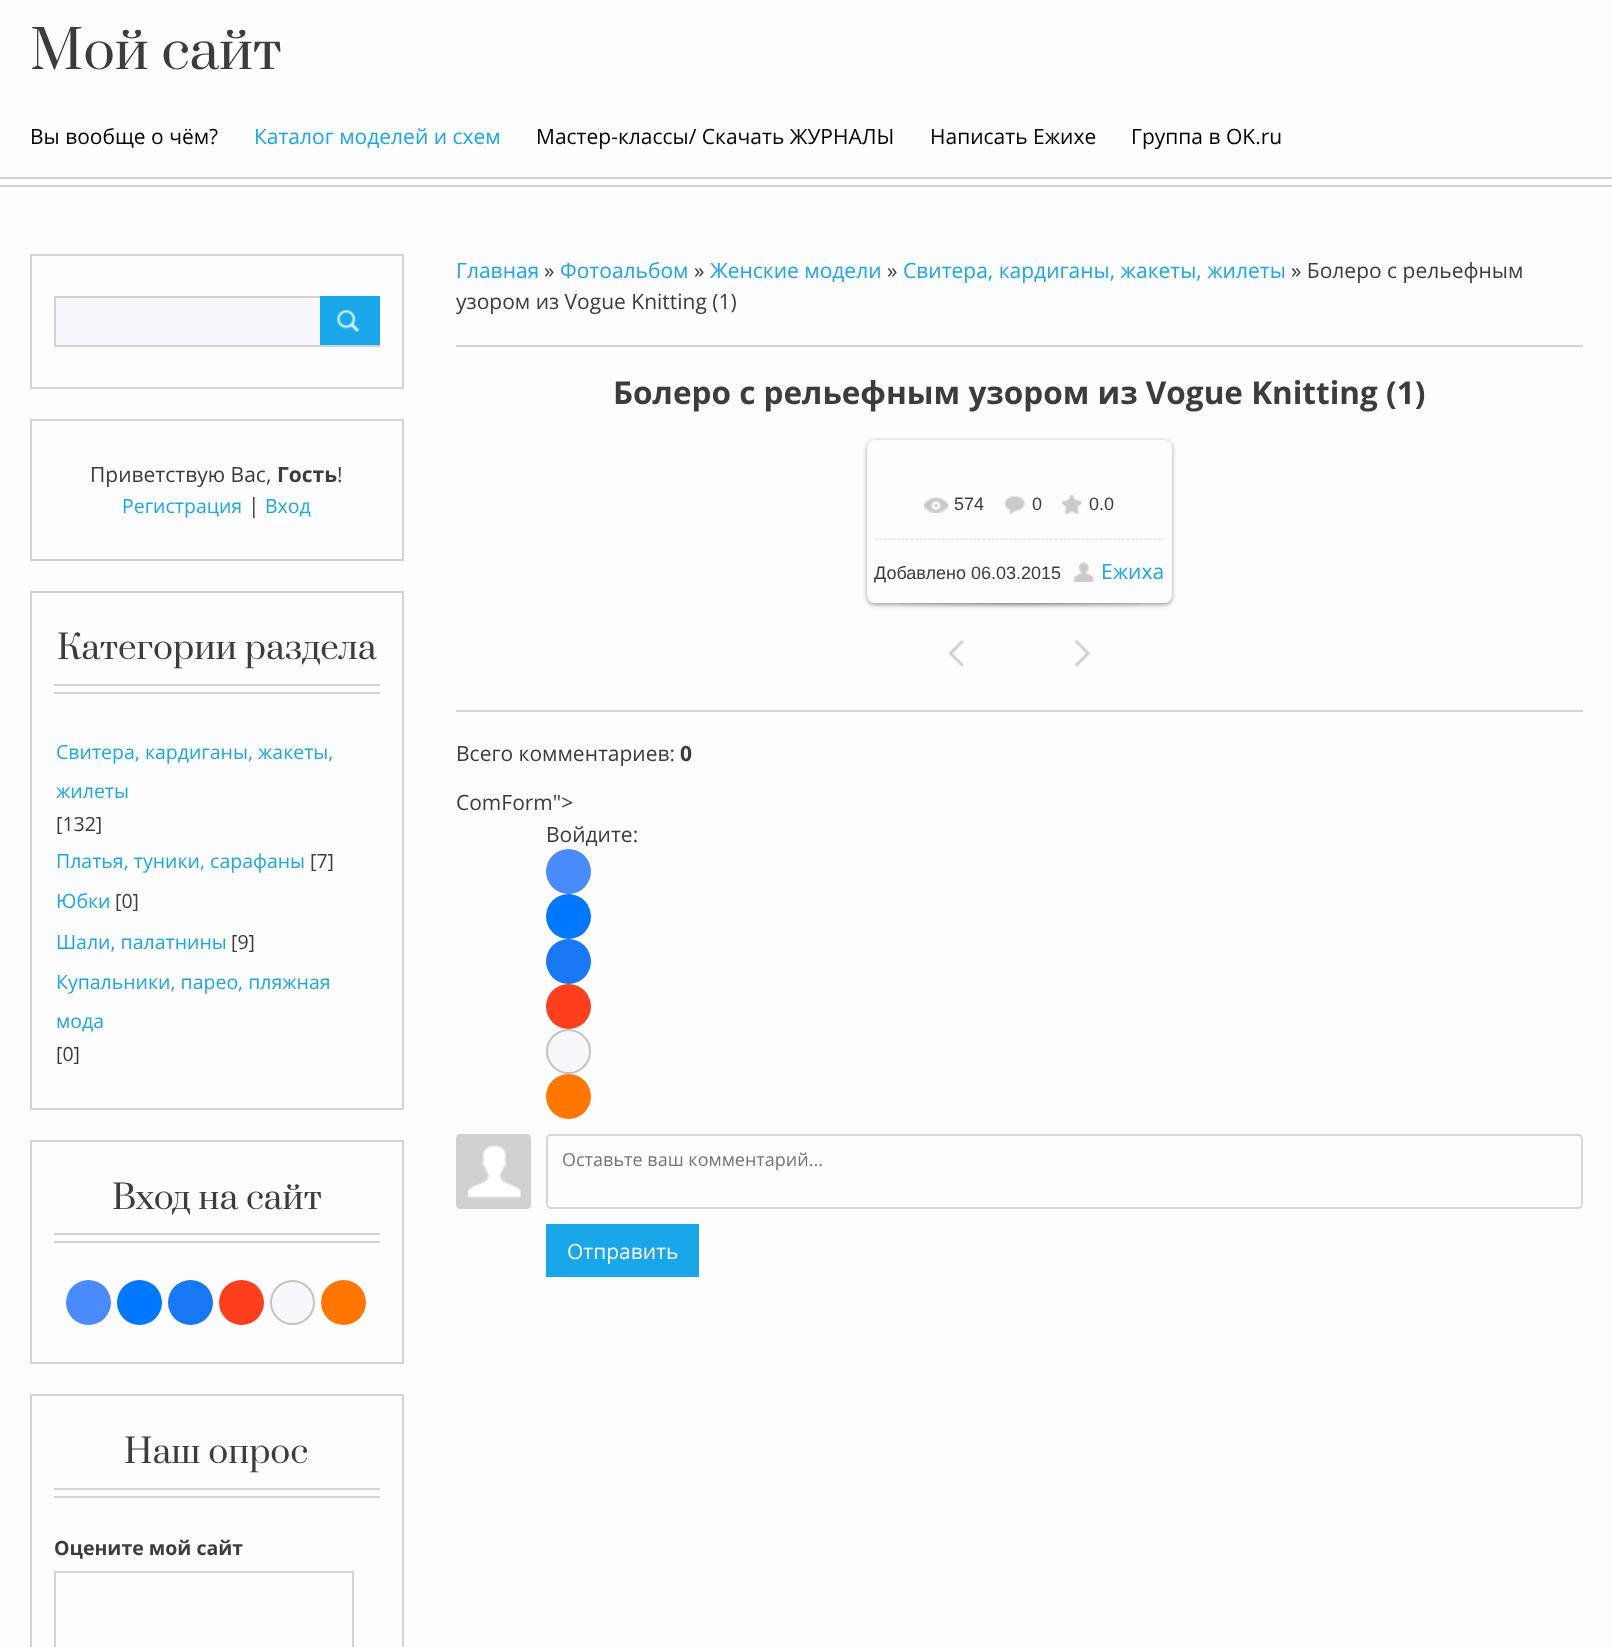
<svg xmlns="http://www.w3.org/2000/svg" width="1612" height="1647">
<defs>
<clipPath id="clip1"><path d="M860 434h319v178h-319zm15 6h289c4.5 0 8 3.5 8 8v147c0 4.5-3.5 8-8 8h-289c-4.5 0-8-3.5-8-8v-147c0-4.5 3.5-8 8-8z" clip-rule="evenodd"/></clipPath>
</defs>
<rect width="100%" height="100%" fill="#fdfdff"/>
<rect y="185" width="1612" height="2" fill="#d3d3d3"/>
<text x="30" y="69" style="font-family:Prata;font-size:52.5px;fill:#3c3c3c">Мой сайт</text>
<text x="30" y="144" style="font-family:Open Sans;font-size:21px;fill:#000">Вы вообще о чём?</text>
<text x="254" y="144" style="font-family:Open Sans;font-size:21px;fill:#1aa7e9">Каталог моделей и схем</text>
<text x="536" y="144" style="font-family:Open Sans;font-size:21px;fill:#000">Мастер-классы/ Скачать ЖУРНАЛЫ</text>
<text x="930" y="144" style="font-family:Open Sans;font-size:21px;fill:#000">Написать Ежихе</text>
<text x="1131" y="144" style="font-family:Open Sans;font-size:21px;fill:#000">Группа в OK.ru</text>
<rect y="177" width="1612" height="2" fill="#d3d3d3"/>
<rect x="31" y="255" width="372" height="133" fill="none" stroke="#d3d3d3" stroke-width="2"/>
<rect x="56" y="298" width="264" height="47" fill="#f8f7fd"/>
<rect x="55" y="297" width="324" height="49" fill="none" stroke="#d3d3d3" stroke-width="2"/>
<rect x="320" y="296" width="60" height="49" fill="#1aa7e9"/>
<image x="337" y="309" width="22" height="23" href="media/1.png"/>
<rect x="31" y="420" width="372" height="140" fill="none" stroke="#d3d3d3" stroke-width="2"/>
<text x="90" y="482" style="font-family:Open Sans;font-size:21px;fill:#3c3c3c">Приветствую Вас,</text>
<text x="277" y="482" style="font-family:Open Sans;font-size:21px;font-weight:bold;fill:#3c3c3c">Гость</text>
<text x="337" y="482" style="font-family:Open Sans;font-size:21px;fill:#3c3c3c">!</text>
<text x="122" y="513" style="font-family:Open Sans;font-size:19.5px;fill:#1aa7e9">Регистрация</text>
<text x="248" y="513" style="font-family:Open Sans;font-size:21px;fill:#3c3c3c">|</text>
<text x="265" y="513" style="font-family:Open Sans;font-size:19.5px;fill:#1aa7e9">Вход</text>
<rect x="31" y="592" width="372" height="517" fill="none" stroke="#d3d3d3" stroke-width="2"/>
<rect x="54" y="692" width="326" height="2" fill="#d3d3d3"/>
<text x="57" y="659" style="font-family:Prata;font-size:33px;fill:#3c3c3c">Категории раздела</text>
<rect x="54" y="684" width="326" height="2" fill="#d3d3d3"/>
<text x="56" y="759" style="font-family:Open Sans;font-size:19.5px;fill:#1aa7e9">Свитера, кардиганы, жакеты,</text>
<text x="56" y="798" style="font-family:Open Sans;font-size:19.5px;fill:#1aa7e9">жилеты</text>
<text x="56" y="831" style="font-family:Open Sans;font-size:19.5px;fill:#3c3c3c">[132]</text>
<text x="56" y="868" style="font-family:Open Sans;font-size:19.5px;fill:#1aa7e9">Платья, туники, сарафаны</text>
<text x="310" y="868" style="font-family:Open Sans;font-size:19.5px;fill:#3c3c3c">[7]</text>
<text x="56" y="908" style="font-family:Open Sans;font-size:19.5px;fill:#1aa7e9">Юбки</text>
<text x="115" y="908" style="font-family:Open Sans;font-size:19.5px;fill:#3c3c3c">[0]</text>
<text x="56" y="949" style="font-family:Open Sans;font-size:19.5px;fill:#1aa7e9">Шали, палатнины</text>
<text x="231" y="949" style="font-family:Open Sans;font-size:19.5px;fill:#3c3c3c">[9]</text>
<text x="56" y="989" style="font-family:Open Sans;font-size:19.5px;fill:#1aa7e9">Купальники, парео, пляжная</text>
<text x="56" y="1028" style="font-family:Open Sans;font-size:19.5px;fill:#1aa7e9">мода</text>
<text x="56" y="1061" style="font-family:Open Sans;font-size:19.5px;fill:#3c3c3c">[0]</text>
<rect x="31" y="1141" width="372" height="222" fill="none" stroke="#d3d3d3" stroke-width="2"/>
<rect x="54" y="1241" width="326" height="2" fill="#d3d3d3"/>
<text x="112" y="1209" style="font-family:Prata;font-size:33px;fill:#3c3c3c">Вход на сайт</text>
<rect x="54" y="1233" width="326" height="2" fill="#d3d3d3"/>
<circle cx="88.5" cy="1302.5" r="22.5" fill="#498bfa"/>
<circle cx="139.5" cy="1302.5" r="22.5" fill="#07f"/>
<circle cx="190.5" cy="1302.5" r="22.5" fill="#1877f2"/>
<circle cx="241.5" cy="1302.5" r="22.5" fill="#fc3f1d"/>
<circle cx="292.5" cy="1302.5" r="21.5" fill="#f8f8fc" stroke="#c4c4c4" stroke-width="2"/>
<circle cx="343.5" cy="1302.5" r="22.5" fill="#f70"/>
<rect x="31" y="1395" width="372" height="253" fill="none" stroke="#d3d3d3" stroke-width="2"/>
<rect x="54" y="1496" width="326" height="2" fill="#d3d3d3"/>
<text x="124" y="1463" style="font-family:Prata;font-size:33px;fill:#3c3c3c">Наш опрос</text>
<rect x="54" y="1488" width="326" height="2" fill="#d3d3d3"/>
<text x="54" y="1555" style="font-family:Open Sans;font-size:19.5px;font-weight:bold;fill:#3c3c3c">Оцените мой сайт</text>
<rect x="55" y="1572" width="298" height="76" fill="none" stroke="#d3d3d3" stroke-width="2"/>
<text x="456" y="278" style="font-family:Open Sans;font-size:21px;fill:#1aa7e9">Главная</text>
<text x="544" y="278" style="font-family:Open Sans;font-size:21px;fill:#3c3c3c">»</text>
<text x="560" y="278" style="font-family:Open Sans;font-size:21px;fill:#1aa7e9">Фотоальбом</text>
<text x="694" y="278" style="font-family:Open Sans;font-size:21px;fill:#3c3c3c">»</text>
<text x="710" y="278" style="font-family:Open Sans;font-size:21px;fill:#1aa7e9">Женские модели</text>
<text x="887" y="278" style="font-family:Open Sans;font-size:21px;fill:#3c3c3c">»</text>
<text x="903" y="278" style="font-family:Open Sans;font-size:21px;fill:#1aa7e9">Свитера, кардиганы, жакеты, жилеты</text>
<text x="1291" y="278" style="font-family:Open Sans;font-size:21px;fill:#3c3c3c">» Болеро с рельефным</text>
<text x="456" y="309" style="font-family:Open Sans;font-size:21px;fill:#3c3c3c">узором из Vogue Knitting (1)</text>
<rect x="456" y="345" width="1127" height="2" fill="#d3d3d3"/>
<text x="613" y="404" style="font-family:Open Sans;font-size:31.5px;font-weight:bold;fill:#3c3c3c">Болеро с рельефным узором из Vogue Knitting (1)</text>
<g clip-path="url(#clip1)">
<rect x="867" y="441" width="305" height="164" rx="8" fill="#0000005e" filter="blur(2px)"/>
</g>
<rect x="1166" y="602" width="1" height="1" fill="#dedee0"/>
<image x="924" y="498" width="24" height="15" href="media/2.png"/>
<text x="954" y="510" style="font-family:Liberation Sans;font-size:18px;fill:#3c3c3c">574</text>
<image x="1005" y="496" width="20" height="19" href="media/3.png"/>
<text x="1032" y="510" style="font-family:Liberation Sans;font-size:18px;fill:#3c3c3c">0</text>
<image x="1062" y="495" width="20" height="20" href="media/4.png"/>
<text x="1089" y="510" style="font-family:Liberation Sans;font-size:18px;fill:#3c3c3c">0.0</text>
<image x="874" y="538" width="290" height="2" href="media/5.png"/>
<text x="874" y="579" style="font-family:Liberation Sans;font-size:18px;fill:#3c3c3c">Добавлено 06.03.2015</text>
<image x="1074" y="562" width="20" height="20" href="media/6.png"/>
<text x="1101" y="579" style="font-family:Open Sans;font-size:21px;fill:#1aa7e9">Ежиха</text>
<image x="900" y="603" width="240" height="5" href="media/7.png"/>
<image x="948" y="640" width="17" height="27" href="media/8.png"/>
<image x="1074" y="640" width="17" height="27" href="media/9.png"/>
<rect x="456" y="710" width="1127" height="2" fill="#d3d3d3"/>
<text x="456" y="761" style="font-family:Open Sans;font-size:21px;fill:#3c3c3c">Всего комментариев:</text>
<text x="680" y="761" style="font-family:Open Sans;font-size:21px;font-weight:bold;fill:#3c3c3c">0</text>
<text x="456" y="810" style="font-family:Open Sans;font-size:21px;fill:#3c3c3c">ComForm"&gt;</text>
<text x="546" y="842" style="font-family:Open Sans;font-size:21px;fill:#3c3c3c">Войдите:</text>
<circle cx="568.5" cy="871.5" r="22.5" fill="#498bfa"/>
<circle cx="568.5" cy="916.5" r="22.5" fill="#07f"/>
<circle cx="568.5" cy="961.5" r="22.5" fill="#1877f2"/>
<circle cx="568.5" cy="1006.5" r="22.5" fill="#fc3f1d"/>
<circle cx="568.5" cy="1051.5" r="21.5" fill="#f8f8fc" stroke="#c4c4c4" stroke-width="2"/>
<circle cx="568.5" cy="1096.5" r="22.5" fill="#f70"/>
<image x="456" y="1134" width="75" height="75" href="media/10.png"/>
<rect x="547" y="1135" width="1035" height="73" rx="4" fill="none" stroke="#d6d6d6" stroke-width="2"/>
<text x="562" y="1166" style="font-family:Open Sans;font-size:18px;fill:#757575">Оставьте ваш комментарий...</text>
<rect x="546" y="1224" width="153" height="53" fill="#1aa7e9"/>
<text x="567" y="1259" style="font-family:Open Sans;font-size:21px;fill:#fff">Отправить</text>
</svg>
